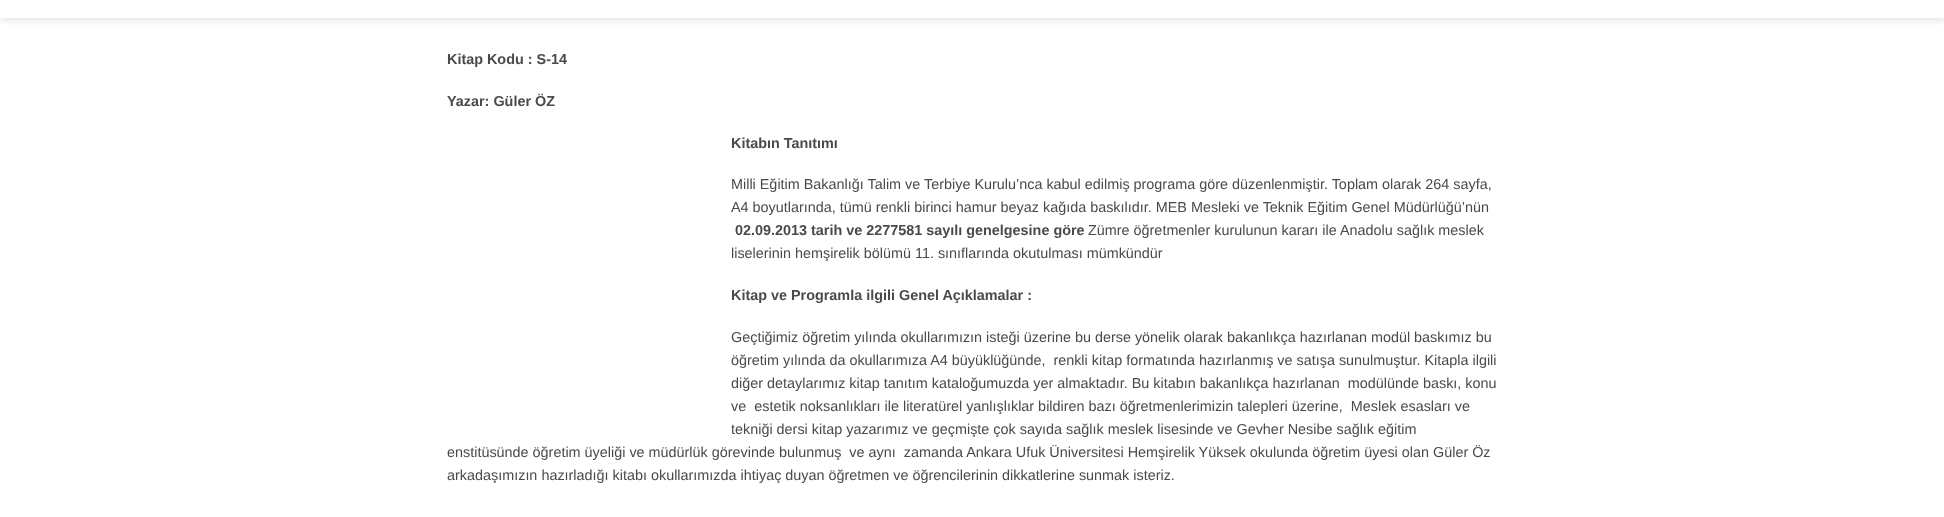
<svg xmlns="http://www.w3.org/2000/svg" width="1944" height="517">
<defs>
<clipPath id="clip1"><rect x="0" y="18" width="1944" height="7"/></clipPath>
</defs>
<rect width="100%" height="100%" fill="#fff"/>
<g clip-path="url(#clip1)">
<rect x="1" y="-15" width="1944" height="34" fill="#00000026" filter="blur(5px)"/>
</g>
<text x="447" y="64" style="font-family:Liberation Sans;font-size:14.4px;font-weight:bold;fill:#4a4a4a">Kitap Kodu : S-14</text>
<text x="447" y="106" style="font-family:Liberation Sans;font-size:14.4px;font-weight:bold;fill:#4a4a4a">Yazar: Güler ÖZ</text>
<text x="731" y="148" style="font-family:Liberation Sans;font-size:14.4px;font-weight:bold;fill:#4a4a4a">Kitabın Tanıtımı</text>
<text x="731" y="189" style="font-family:Liberation Sans;font-size:14.4px;fill:#4a4a4a">Milli Eğitim Bakanlığı Talim ve Terbiye Kurulu’nca kabul edilmiş programa göre düzenlenmiştir. Toplam olarak 264 sayfa,</text>
<text x="731" y="212" style="font-family:Liberation Sans;font-size:14.4px;fill:#4a4a4a">A4 boyutlarında, tümü renkli birinci hamur beyaz kağıda baskılıdır. MEB Mesleki ve Teknik Eğitim Genel Müdürlüğü’nün</text>
<text x="735" y="235" style="font-family:Liberation Sans;font-size:14.4px;font-weight:bold;fill:#4a4a4a">02.09.2013 tarih ve 2277581 sayılı genelgesine göre</text>
<text x="1088" y="235" style="font-family:Liberation Sans;font-size:14.4px;fill:#4a4a4a">Zümre öğretmenler kurulunun kararı ile Anadolu sağlık meslek</text>
<text x="731" y="258" style="font-family:Liberation Sans;font-size:14.4px;fill:#4a4a4a">liselerinin hemşirelik bölümü 11. sınıflarında okutulması mümkündür</text>
<text x="731" y="300" style="font-family:Liberation Sans;font-size:14.4px;font-weight:bold;fill:#4a4a4a">Kitap ve Programla ilgili Genel Açıklamalar :</text>
<text x="731" y="342" style="font-family:Liberation Sans;font-size:14.4px;fill:#4a4a4a">Geçtiğimiz öğretim yılında okullarımızın isteği üzerine bu derse yönelik olarak bakanlıkça hazırlanan modül baskımız bu</text>
<text x="731" y="365" style="font-family:Liberation Sans;font-size:14.4px;fill:#4a4a4a" xml:space="preserve">öğretim yılında da okullarımıza A4 büyüklüğünde,  renkli kitap formatında hazırlanmış ve satışa sunulmuştur. Kitapla ilgili</text>
<text x="731" y="388" style="font-family:Liberation Sans;font-size:14.4px;fill:#4a4a4a" xml:space="preserve">diğer detaylarımız kitap tanıtım kataloğumuzda yer almaktadır. Bu kitabın bakanlıkça hazırlanan  modülünde baskı, konu</text>
<text x="731" y="411" style="font-family:Liberation Sans;font-size:14.4px;fill:#4a4a4a" xml:space="preserve">ve  estetik noksanlıkları ile literatürel yanlışlıklar bildiren bazı öğretmenlerimizin talepleri üzerine,  Meslek esasları ve</text>
<text x="731" y="434" style="font-family:Liberation Sans;font-size:14.4px;fill:#4a4a4a">tekniği dersi kitap yazarımız ve geçmişte çok sayıda sağlık meslek lisesinde ve Gevher Nesibe sağlık eğitim</text>
<text x="447" y="457" style="font-family:Liberation Sans;font-size:14.4px;fill:#4a4a4a" xml:space="preserve">enstitüsünde öğretim üyeliği ve müdürlük görevinde bulunmuş  ve aynı  zamanda Ankara Ufuk Üniversitesi Hemşirelik Yüksek okulunda öğretim üyesi olan Güler Öz</text>
<text x="447" y="480" style="font-family:Liberation Sans;font-size:14.4px;fill:#4a4a4a">arkadaşımızın hazırladığı kitabı okullarımızda ihtiyaç duyan öğretmen ve öğrencilerinin dikkatlerine sunmak isteriz.</text>
</svg>
